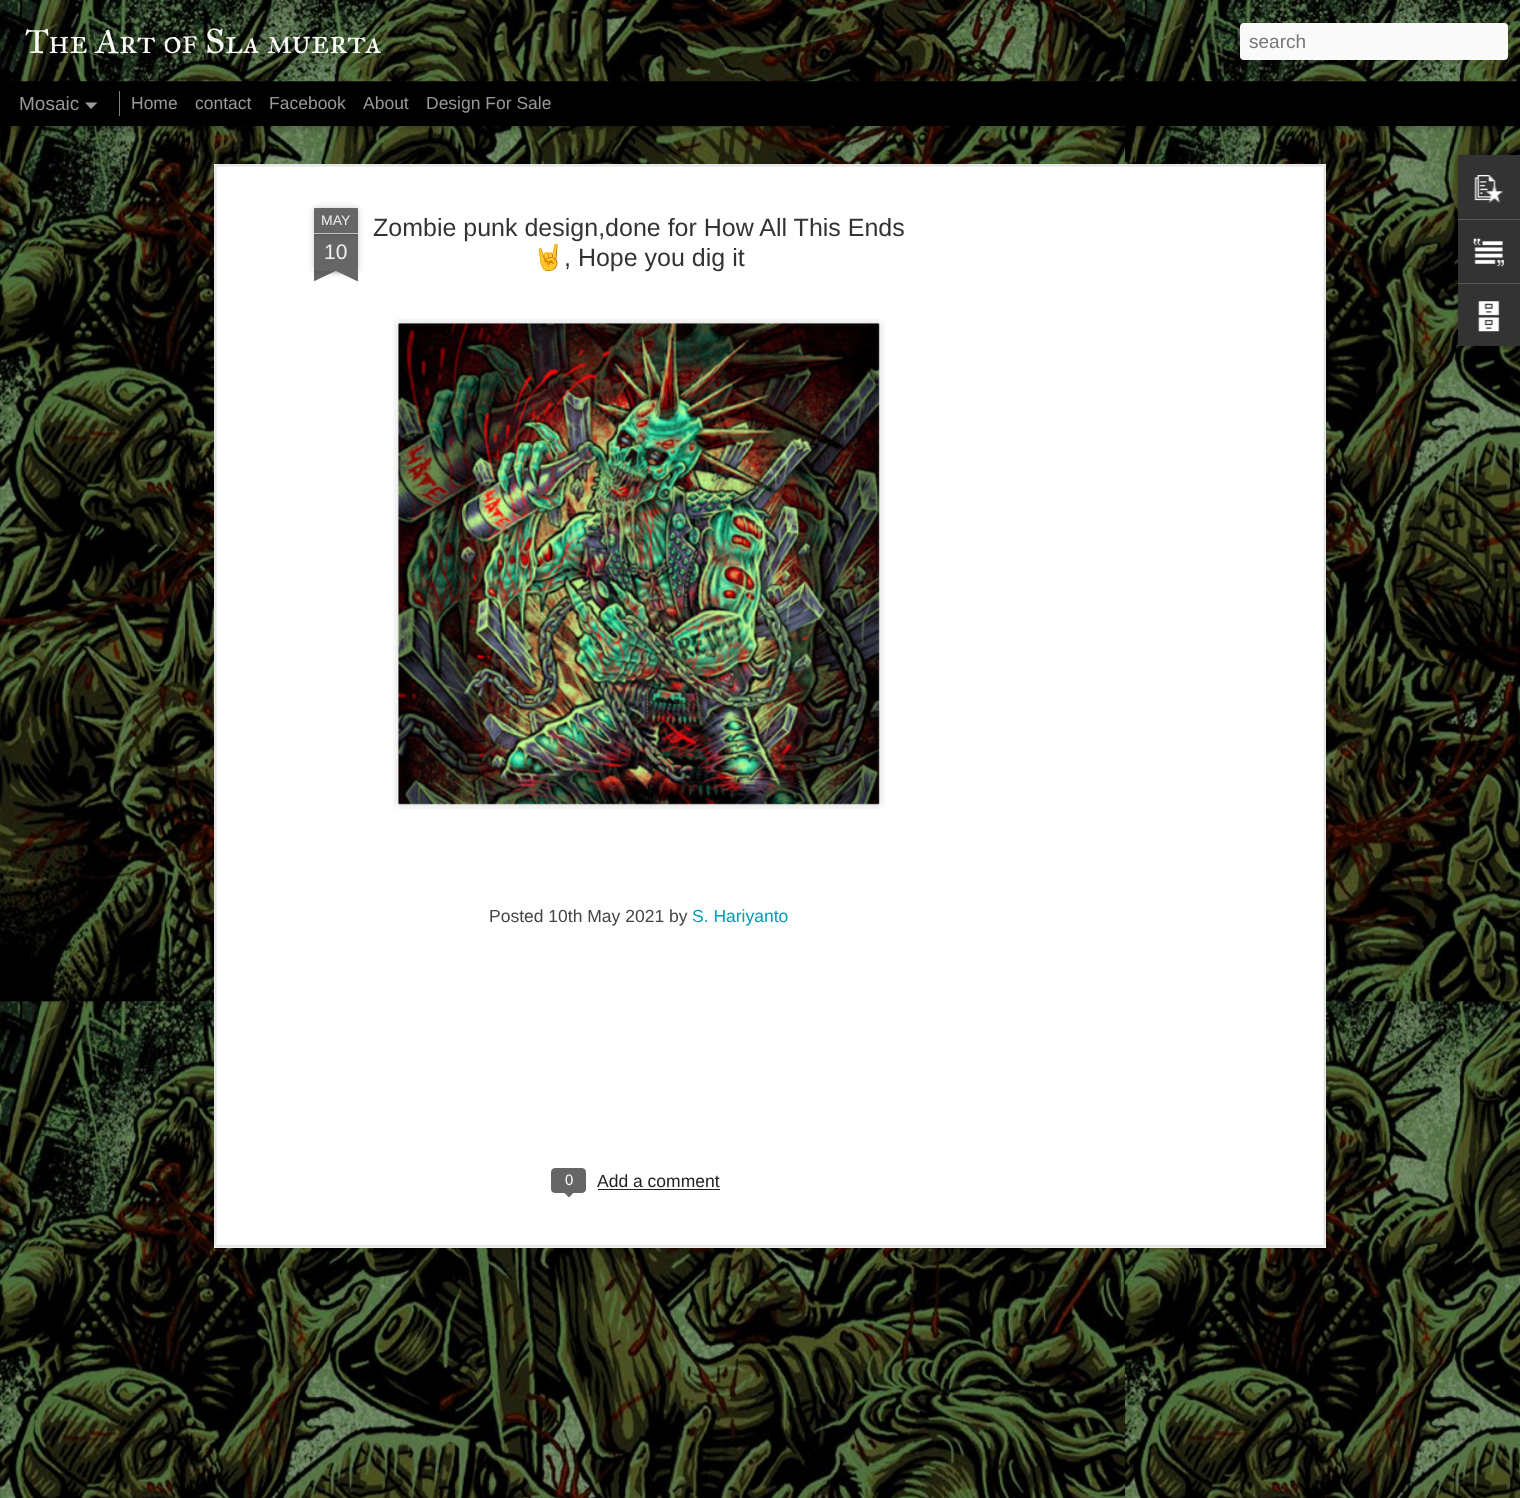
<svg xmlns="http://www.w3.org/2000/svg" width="1520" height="1498">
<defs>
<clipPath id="clip1"><rect x="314" y="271" width="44" height="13"/></clipPath>
<clipPath id="clip2"><rect x="314" y="271" width="44" height="13"/></clipPath>
</defs>
<rect width="100%" height="100%" fill="#020000"/>
<image x="0" y="126" width="1520" height="1372" href="media/2.png"/>
<rect y="81" width="1520" height="44" fill="#00000080" filter="blur(5px)"/>
<image x="0" y="0" width="1520" height="82" href="media/1.png"/>
<text x="25" y="53" style="font-family:IM FELL Great Primer SC;font-size:35px;fill:#f8f8f4">The Art of Sla muerta</text>
<rect x="1240" y="23" width="268" height="37" rx="4" fill="#fafafa"/>
<text x="1249" y="48" style="font-family:Liberation Sans;font-size:19px;fill:#757575">search</text>
<text x="19" y="110" style="font-family:Liberation Sans;font-size:19px;fill:#9a9999">Mosaic</text>
<path d="M85 102.5h12.5l-6.5 6.5z" fill="#9a9999"/>
<rect x="119" y="91" width="1" height="25" fill="#818080"/>
<text x="131" y="109" style="font-family:Liberation Sans;font-size:17.5px;fill:#9a9999">Home</text>
<text x="195" y="109" style="font-family:Liberation Sans;font-size:17.5px;fill:#9a9999">contact</text>
<text x="269" y="109" style="font-family:Liberation Sans;font-size:17.5px;fill:#9a9999">Facebook</text>
<text x="363" y="109" style="font-family:Liberation Sans;font-size:17.5px;fill:#9a9999">About</text>
<text x="426" y="109" style="font-family:Liberation Sans;font-size:17.5px;fill:#9a9999">Design For Sale</text>
<rect x="214" y="164" width="1112" height="1084" fill="#fff"/>
<image x="214" y="164" width="1113" height="1084" href="media/3.png"/>
<rect x="314" y="234" width="44" height="37" fill="#00000033" filter="blur(3px)"/>
<rect x="314" y="234" width="44" height="37" fill="#666"/>
<rect x="314" y="208" width="44" height="26" rx="1" fill="#00000033" filter="blur(3px)"/>
<path d="M315 208h42c.5 0 1 .5 1 1v25h-44v-25c0-.5 .5-1 1-1z" fill="#666"/>
<rect x="314" y="233" width="44" height="1" fill="#c2c2c2"/>
<text x="321" y="225" style="font-family:Liberation Sans;font-size:14px;fill:#eee">MAY</text>
<text x="324" y="259" style="font-family:Liberation Sans;font-size:21px;fill:#eee">10</text>
<g clip-path="url(#clip1)">
<rect x="303" y="259" width="62" height="12" fill="#00000033" filter="blur(3px)"/>
</g>
<g clip-path="url(#clip2)">
<path d="M303 273l56-27l6 11l-57 27z" fill="#666"/>
</g>
<g clip-path="url(#clip1)">
<rect x="306" y="259" width="63" height="12" fill="#00000033" filter="blur(3px)"/>
</g>
<g clip-path="url(#clip2)">
<path d="M312 246l56 27l-5 11l-56-27z" fill="#666"/>
</g>
<text x="373" y="236" style="font-family:Liberation Sans;font-size:25px;fill:#333">Zombie punk design,done for How All This Ends</text>
<text x="533" y="266" style="font-family:Noto Color Emoji;font-size:25px;fill:#333">🤘</text>
<text x="564" y="266" style="font-family:Liberation Sans;font-size:25px;fill:#333">, Hope you dig it</text>
<image x="393" y="318" width="492" height="492" href="media/4.png"/>
<image x="398" y="323" width="482" height="482" href="media/5.png"/>
<text x="489" y="922" style="font-family:Liberation Sans;font-size:17.5px;fill:#444">Posted 10th May 2021 by</text>
<text x="692" y="922" style="font-family:Liberation Sans;font-size:17.5px;fill:#009eb8">S. Hariyanto</text>
<rect x="551.5" y="1168.5" width="34" height="24" rx="3.5" fill="#666" stroke="#666"/>
<text x="565" y="1185" style="font-family:Liberation Sans;font-size:15px;fill:#fff">0</text>
<path d="M562.5 1191h12.5l-6 6.5z" fill="#666"/>
<text x="597" y="1187" style="font-family:Liberation Sans;font-size:17.5px;fill:#222">Add a comment</text>
<rect x="598" y="1189" width="122" height="1" fill="#222"/>
<rect x="1458" y="156" width="62" height="192" rx="2.5" fill="#0000004d" filter="blur(2px)"/>
<path d="M1460.5 155h59.5v191h-59.5c-1.5 0-2.5-1-2.5-2.5v-186c0-1.5 1-2.5 2.5-2.5z" fill="#333"/>
<path d="M1460.5 155h59.5v64h-62v-61.5c0-1.5 1-2.5 2.5-2.5z" fill="#333"/>
<image x="1474" y="175" width="29" height="28" href="media/6.png"/>
<rect x="1458" y="219" width="62" height="1" fill="#585858"/>
<image x="1473" y="238" width="31" height="29" href="media/7.png"/>
<path d="M1458 283h62v63h-59.5c-1.5 0-2.5-1-2.5-2.5z" fill="#333"/>
<rect x="1458" y="283" width="62" height="1" fill="#585858"/>
<image x="1478" y="301" width="22" height="31" href="media/8.png"/>
</svg>
